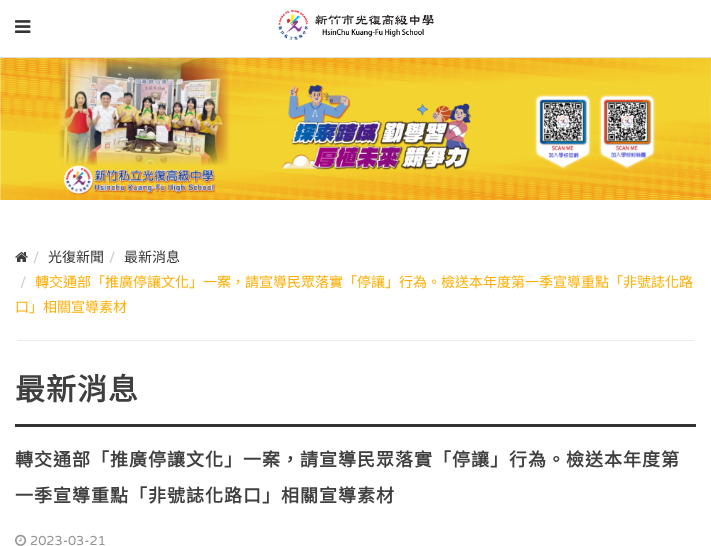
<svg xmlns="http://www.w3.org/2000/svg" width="711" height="546">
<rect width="100%" height="100%" fill="#fff"/>
<rect y="57" width="711" height="1" fill="#e0e0e0"/>
<image x="15" y="20" width="16" height="13" href="media/1.png"/>
<image x="277" y="10" width="157" height="30" href="media/2.png"/>
<image x="0" y="58" width="711" height="142" href="media/3.png"/>
<rect x="17" y="340" width="677" height="1" fill="#ebebeb"/>
<image x="15" y="252" width="13" height="10" href="media/4.png"/>
<text x="33" y="262" style="font-family:Varela Round;font-size:14px;fill:#ccc">/</text>
<text x="48" y="262" style="font-family:Noto Sans CJK TC;font-size:14px;fill:#333">光復新聞</text>
<text x="109" y="262" style="font-family:Varela Round;font-size:14px;fill:#ccc">/</text>
<text x="124" y="262" style="font-family:Noto Sans CJK TC;font-size:14px;fill:#333">最新消息</text>
<text x="20" y="287" style="font-family:Varela Round;font-size:14px;fill:#ccc">/</text>
<text x="35" y="287" style="font-family:Noto Sans CJK TC;font-size:14px;fill:#ffae00">轉交通部「推廣停讓文化」一案，請宣導民眾落實「停讓」行為。檢送本年度第一季宣導重點「非號誌化路</text>
<text x="15" y="312" style="font-family:Noto Sans CJK TC;font-size:14px;fill:#ffae00">口」相關宣導素材</text>
<text x="15" y="400" style="font-family:Noto Sans CJK TC;font-size:30px;font-weight:bold;letter-spacing:1px;fill:#3f3f3f">最新消息</text>
<rect x="15" y="424" width="681" height="3" fill="#333"/>
<text x="15" y="466" style="font-family:Noto Sans CJK TC;font-size:18px;font-weight:bold;letter-spacing:1px;fill:#3f3f3f">轉交通部「推廣停讓文化」一案，請宣導民眾落實「停讓」行為。檢送本年度第</text>
<text x="15" y="502" style="font-family:Noto Sans CJK TC;font-size:18px;font-weight:bold;letter-spacing:1px;fill:#3f3f3f">一季宣導重點「非號誌化路口」相關宣導素材</text>
<image x="15" y="534" width="12" height="12" href="media/5.png"/>
<text x="30" y="545" style="font-family:Varela Round;font-size:13px;fill:#959595">2023-03-21</text>
</svg>
